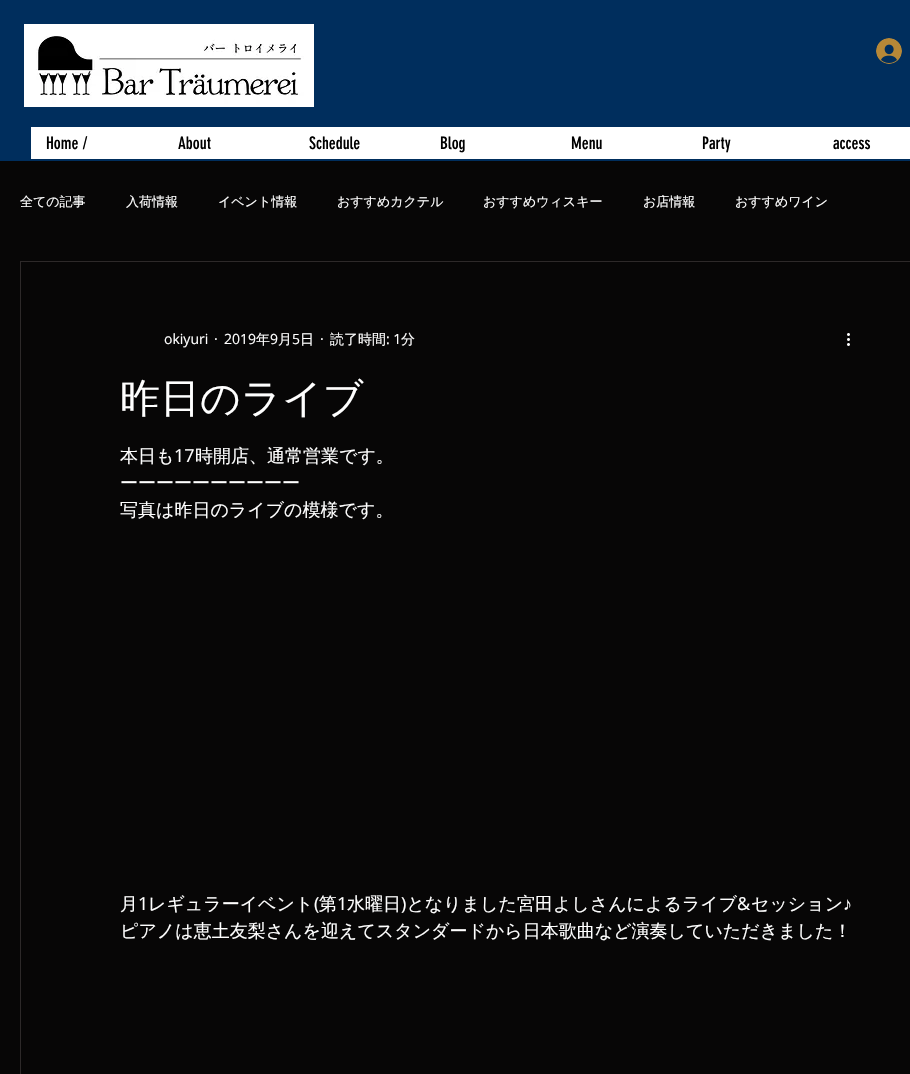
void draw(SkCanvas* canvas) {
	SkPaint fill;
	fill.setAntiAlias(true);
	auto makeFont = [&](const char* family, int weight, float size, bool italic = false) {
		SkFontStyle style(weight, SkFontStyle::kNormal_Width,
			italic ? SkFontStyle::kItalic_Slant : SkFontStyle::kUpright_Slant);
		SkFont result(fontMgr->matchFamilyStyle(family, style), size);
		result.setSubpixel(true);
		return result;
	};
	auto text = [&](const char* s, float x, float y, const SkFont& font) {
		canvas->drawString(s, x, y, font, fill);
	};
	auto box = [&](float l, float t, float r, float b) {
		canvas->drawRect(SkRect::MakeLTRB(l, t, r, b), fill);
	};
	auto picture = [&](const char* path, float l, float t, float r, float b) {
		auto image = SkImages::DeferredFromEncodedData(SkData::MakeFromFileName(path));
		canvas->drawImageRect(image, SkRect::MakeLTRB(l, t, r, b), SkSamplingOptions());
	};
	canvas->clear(0xFF002E5D);
	picture("image0.png", 24, 24, 314, 107);
	picture("image1.png", 876, 38, 902, 64);
	fill.setColor(0xFFFFFFFF);
	box(31, 127, 910, 159);
	fill.setColor(0xFF070606);
	box(0, 161, 910, 1074);
	fill.setStyle(SkPaint::kStroke_Style);
	fill.setStrokeWidth(1);
	fill.setColor(0xFF2D2929);
	canvas->drawRect(SkRect::MakeLTRB(20.5f, 261.5f, 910.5f, 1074.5f), fill);
	picture("image2.png", 847, 333, 850, 346);
	auto font1 = makeFont("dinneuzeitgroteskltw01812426", 400, 17);
	fill.setStyle(SkPaint::kFill_Style);
	fill.setColor(0xFF000000);
	text("Home /", 46, 149, font1);
	text("About", 178, 149, font1);
	text("Schedule", 309, 149, font1);
	text("Blog", 440, 149, font1);
	text("Menu", 571, 149, font1);
	text("Party", 702, 149, font1);
	text("access", 833, 149, font1);
	auto font2 = makeFont("WenQuanYi Zen Hei", 500, 13);
	fill.setColor(0xFFFFFFFF);
	text("全ての記事", 20, 206, font2);
	text("入荷情報", 126, 206, font2);
	text("イベント情報", 218, 206, font2);
	text("おすすめカクテル", 337, 206, font2);
	text("おすすめウィスキー", 483, 206, font2);
	text("お店情報", 643, 206, font2);
	text("おすすめワイン", 735, 206, font2);
	auto font3 = makeFont("Open Sans", 400, 14);
	text("okiyuri", 164, 344, font3);
	text("·", 214, 344, font3);
	text("2019", 224, 344, font3);
	auto font4 = makeFont("WenQuanYi Zen Hei", 500, 14);
	text("年", 256, 344, font4);
	text("9", 270, 344, font3);
	text("月", 278, 344, font4);
	text("5", 292, 344, font3);
	text("日", 300, 344, font4);
	text("·", 320, 344, font3);
	text("読了時間", 330, 344, font4);
	text(": 1", 386, 344, font3);
	text("分", 401, 344, font4);
	auto font5 = makeFont("WenQuanYi Zen Hei", 500, 40);
	text("昨日のライブ", 120, 412, font5);
	auto font6 = makeFont("WenQuanYi Zen Hei", 500, 18);
	text("本日も", 120, 462, font6);
	auto font7 = makeFont("Open Sans", 400, 18);
	text("17", 174, 462, font7);
	text("時開店、通常営業です。", 195, 462, font6);
	text("ーーーーーーーーーー", 120, 489, font6);
	text("写真は昨日のライブの模様です。", 120, 516, font6);
	text("月", 120, 910, font6);
	text("1", 138, 910, font7);
	text("レギュラーイベント 第", 148, 910, font6);
	text("水曜日 となりました宮田よしさんによるライブ", 347, 910, font6);
	text("&", 737, 910, font7);
	text("(", 314, 910, font7);
	text("1", 337, 910, font7);
	text(")", 401, 910, font7);
	text("セッション", 751, 910, font6);
	auto font8 = makeFont("Liberation Sans", 400, 18);
	text("♪", 843, 910, font8);
	text("ピアノは恵土友梨さんを迎えてスタンダードから日本歌曲など演奏していただきました！", 120, 937, font6);
}
